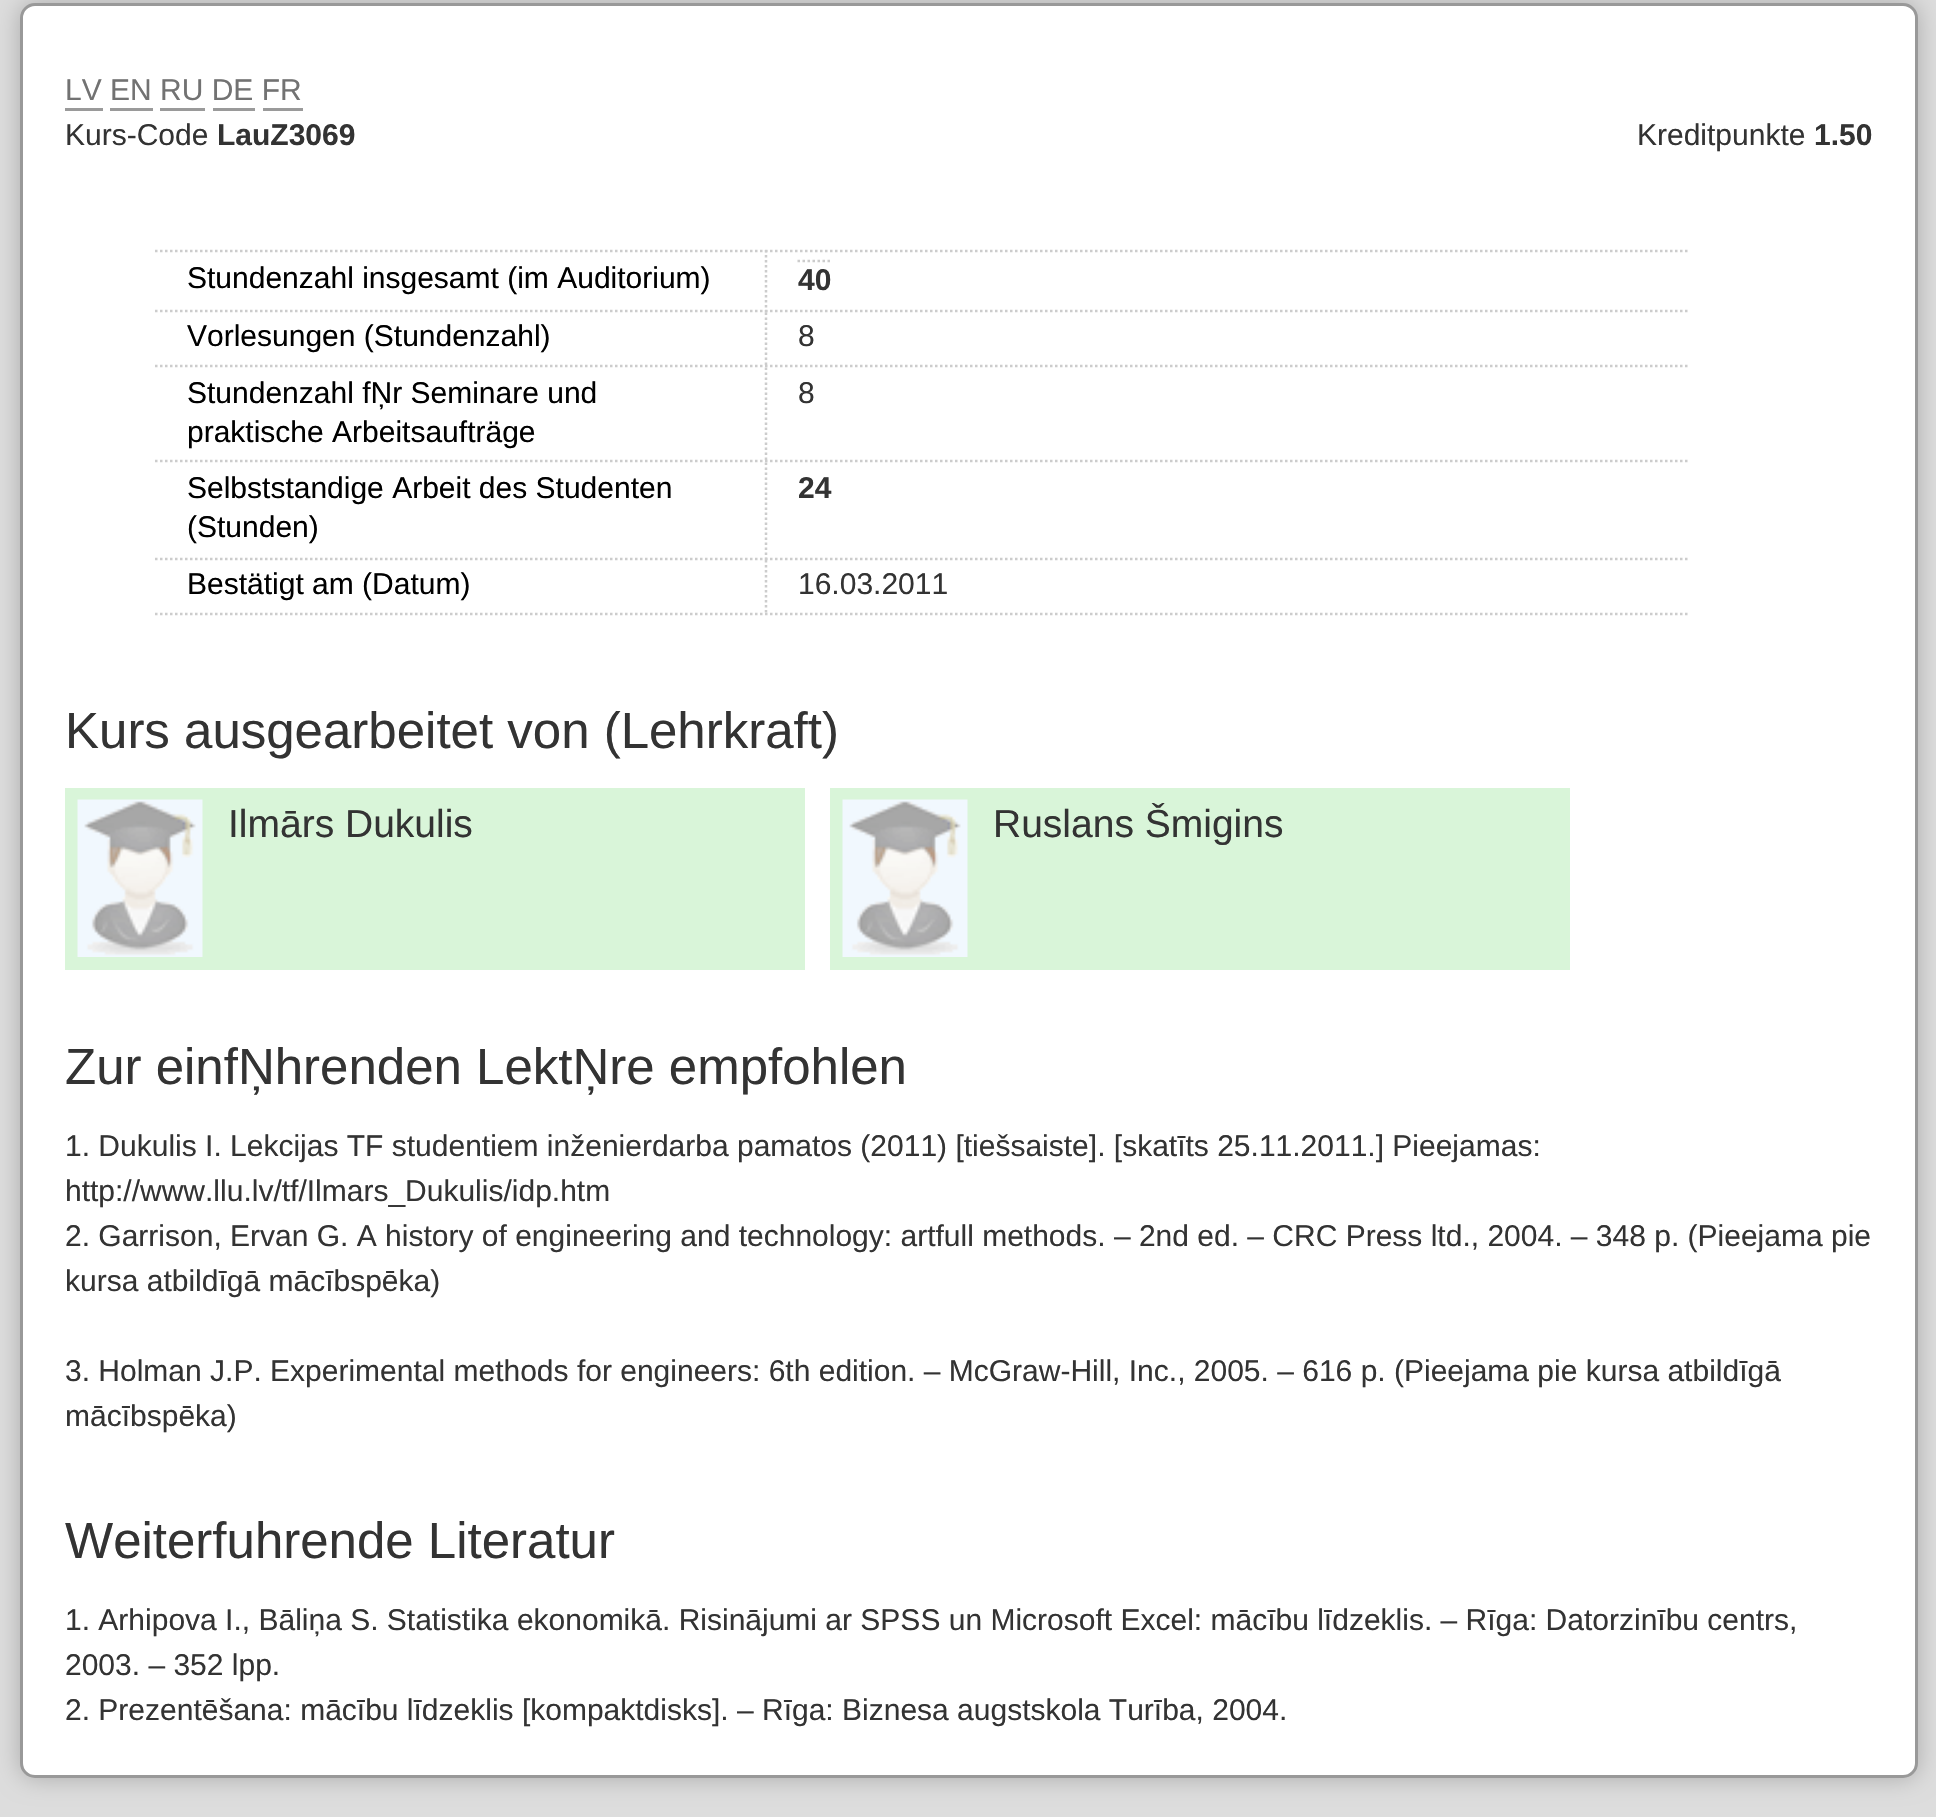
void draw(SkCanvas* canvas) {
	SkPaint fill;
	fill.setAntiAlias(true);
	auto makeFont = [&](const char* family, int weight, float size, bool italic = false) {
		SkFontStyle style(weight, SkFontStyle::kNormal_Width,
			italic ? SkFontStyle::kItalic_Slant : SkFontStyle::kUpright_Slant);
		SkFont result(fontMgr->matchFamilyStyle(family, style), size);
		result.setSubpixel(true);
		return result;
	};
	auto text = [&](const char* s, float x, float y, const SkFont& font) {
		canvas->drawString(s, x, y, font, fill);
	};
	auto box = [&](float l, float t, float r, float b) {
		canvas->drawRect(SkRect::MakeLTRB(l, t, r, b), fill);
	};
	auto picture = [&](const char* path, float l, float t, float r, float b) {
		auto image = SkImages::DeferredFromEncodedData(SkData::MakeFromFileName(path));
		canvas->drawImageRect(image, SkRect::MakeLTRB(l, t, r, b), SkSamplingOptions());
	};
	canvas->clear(0xFFDDDDDD);
	fill.setColor(0xFFAAAAAA);
	fill.setMaskFilter(SkMaskFilter::MakeBlur(kNormal_SkBlurStyle, 12.5f));
	canvas->drawRoundRect(SkRect::MakeLTRB(20, 3, 1918, 1778), 15, 15, fill);
	fill.setMaskFilter(nullptr);
	fill.setColor(0xFFFFFFFF);
	canvas->drawRoundRect(SkRect::MakeLTRB(21.5f, 4.5f, 1916.5f, 1776.5f), 13.5f, 13.5f, fill);
	fill.setStyle(SkPaint::kStroke_Style);
	fill.setStrokeWidth(3);
	fill.setColor(0xFF999999);
	canvas->drawRoundRect(SkRect::MakeLTRB(21.5f, 4.5f, 1916.5f, 1776.5f), 13.5f, 13.5f, fill);
	fill.setStyle(SkPaint::kFill_Style);
	fill.setColor(0xFF9A9A9A);
	box(65, 108, 103, 111);
	box(110, 108, 153, 111);
	box(160, 108, 205, 111);
	box(213, 108, 255, 111);
	box(263, 108, 303, 111);
	fill.setStyle(SkPaint::kStroke_Style);
	fill.setStrokeWidth(2.5f);
	fill.setColor(0xFFCCCCCC);
	fill.setPathEffect(SkDashPathEffect::Make({{2.5f, 2.5f}}, 0));
	canvas->drawPath(SkPathBuilder().moveTo(155, 251).lineTo(765, 251).detach(), fill);
	fill.setPathEffect(nullptr);
	fill.setPathEffect(SkDashPathEffect::Make({{2.5f, 2.5f}}, 0));
	canvas->drawPath(SkPathBuilder().moveTo(155, 311).lineTo(765, 311).detach(), fill);
	fill.setPathEffect(nullptr);
	fill.setPathEffect(SkDashPathEffect::Make({{2.5f, 2.5f}}, 0));
	canvas->drawPath(SkPathBuilder().moveTo(765, 251).lineTo(1687.5f, 251).detach(), fill);
	fill.setPathEffect(nullptr);
	fill.setPathEffect(SkDashPathEffect::Make({{2.5f, 2.5f}}, 0));
	canvas->drawPath(SkPathBuilder().moveTo(765, 311).lineTo(1687.5f, 311).detach(), fill);
	fill.setPathEffect(nullptr);
	fill.setPathEffect(SkDashPathEffect::Make({{2.5f, 2.5f}}, 0));
	canvas->drawPath(SkPathBuilder().moveTo(766, 250).lineTo(766, 312.5f).detach(), fill);
	fill.setPathEffect(nullptr);
	fill.setPathEffect(SkDashPathEffect::Make({{2.5f, 2.5f}}, 0));
	canvas->drawPath(SkPathBuilder().moveTo(797.5f, 261).lineTo(832.5f, 261).detach(), fill);
	fill.setPathEffect(nullptr);
	fill.setPathEffect(SkDashPathEffect::Make({{2.5f, 2.5f}}, 0));
	canvas->drawPath(SkPathBuilder().moveTo(155, 366).lineTo(765, 366).detach(), fill);
	fill.setPathEffect(nullptr);
	fill.setPathEffect(SkDashPathEffect::Make({{2.5f, 2.5f}}, 0));
	canvas->drawPath(SkPathBuilder().moveTo(765, 366).lineTo(1687.5f, 366).detach(), fill);
	fill.setPathEffect(nullptr);
	fill.setPathEffect(SkDashPathEffect::Make({{2.5f, 2.5f}}, 0));
	canvas->drawPath(SkPathBuilder().moveTo(766, 312.5f).lineTo(766, 367.5f).detach(), fill);
	fill.setPathEffect(nullptr);
	fill.setPathEffect(SkDashPathEffect::Make({{2.5f, 2.5f}}, 0));
	canvas->drawPath(SkPathBuilder().moveTo(155, 461).lineTo(765, 461).detach(), fill);
	fill.setPathEffect(nullptr);
	fill.setPathEffect(SkDashPathEffect::Make({{2.5f, 2.5f}}, 0));
	canvas->drawPath(SkPathBuilder().moveTo(765, 461).lineTo(1687.5f, 461).detach(), fill);
	fill.setPathEffect(nullptr);
	fill.setPathEffect(SkDashPathEffect::Make({{2.5f, 2.5f}}, 0));
	canvas->drawPath(SkPathBuilder().moveTo(766, 367.5f).lineTo(766, 462.5f).detach(), fill);
	fill.setPathEffect(nullptr);
	fill.setPathEffect(SkDashPathEffect::Make({{2.5f, 2.5f}}, 0));
	canvas->drawPath(SkPathBuilder().moveTo(155, 559).lineTo(765, 559).detach(), fill);
	fill.setPathEffect(nullptr);
	fill.setPathEffect(SkDashPathEffect::Make({{2.5f, 2.5f}}, 0));
	canvas->drawPath(SkPathBuilder().moveTo(765, 559).lineTo(1687.5f, 559).detach(), fill);
	fill.setPathEffect(nullptr);
	fill.setPathEffect(SkDashPathEffect::Make({{2.5f, 2.5f}}, 0));
	canvas->drawPath(SkPathBuilder().moveTo(766, 462.5f).lineTo(766, 560).detach(), fill);
	fill.setPathEffect(nullptr);
	fill.setPathEffect(SkDashPathEffect::Make({{2.5f, 2.5f}}, 0));
	canvas->drawPath(SkPathBuilder().moveTo(155, 614).lineTo(765, 614).detach(), fill);
	fill.setPathEffect(nullptr);
	fill.setPathEffect(SkDashPathEffect::Make({{2.5f, 2.5f}}, 0));
	canvas->drawPath(SkPathBuilder().moveTo(765, 614).lineTo(1687.5f, 614).detach(), fill);
	fill.setPathEffect(nullptr);
	fill.setPathEffect(SkDashPathEffect::Make({{2.5f, 2.5f}}, 0));
	canvas->drawPath(SkPathBuilder().moveTo(766, 560).lineTo(766, 615).detach(), fill);
	fill.setPathEffect(nullptr);
	fill.setStyle(SkPaint::kFill_Style);
	fill.setColor(0xFFD9F5D9);
	box(65, 788, 805, 970);
	picture("image0.png", 77, 799, 203, 957);
	box(830, 788, 1570, 970);
	picture("image1.png", 842, 799, 968, 957);
	auto font1 = makeFont("Liberation Sans", 400, 30);
	fill.setColor(0xFF727272);
	text("LV EN RU DE FR", 65, 100, font1);
	fill.setColor(0xFF333333);
	text("Kurs-Code", 65, 145, font1);
	auto font2 = makeFont("Liberation Sans", 700, 30);
	text("LauZ3069", 217, 145, font2);
	text("Kreditpunkte", 1637, 145, font1);
	text("1.50", 1814, 145, font2);
	fill.setColor(0xFF000000);
	text("Stundenzahl insgesamt (im Auditorium)", 187, 288, font1);
	fill.setColor(0xFF333333);
	text("40", 798, 290, font2);
	fill.setColor(0xFF000000);
	text("Vorlesungen (Stundenzahl)", 187, 346, font1);
	fill.setColor(0xFF333333);
	text("8", 798, 346, font1);
	fill.setColor(0xFF000000);
	text("Stundenzahl fŅr Seminare und", 187, 403, font1);
	text("praktische Arbeitsaufträge", 187, 442, font1);
	fill.setColor(0xFF333333);
	text("8", 798, 403, font1);
	fill.setColor(0xFF000000);
	text("Selbststandige Arbeit des Studenten", 187, 498, font1);
	text("(Stunden)", 187, 537, font1);
	fill.setColor(0xFF333333);
	text("24", 798, 498, font2);
	fill.setColor(0xFF000000);
	text("Bestätigt am (Datum)", 187, 594, font1);
	fill.setColor(0xFF333333);
	text("16.03.2011", 798, 594, font1);
	auto font3 = makeFont("Liberation Sans", 400, 51);
	text("Kurs ausgearbeitet von (Lehrkraft)", 65, 748, font3);
	auto font4 = makeFont("Liberation Sans", 400, 39);
	text("Ilmārs Dukulis", 228, 837, font4);
	text("Ruslans Šmigins", 993, 837, font4);
	text("Zur einfŅhrenden LektŅre empfohlen", 65, 1084, font3);
	text("1. Dukulis I. Lekcijas TF studentiem inženierdarba pamatos (2011) [tiešsaiste]. [skatīts 25.11.2011.] Pieejamas:", 65, 1156, font1);
	text("http://www.llu.lv/tf/Ilmars_Dukulis/idp.htm", 65, 1201, font1);
	text("2. Garrison, Ervan G. A history of engineering and technology: artfull methods. – 2nd ed. – CRC Press ltd., 2004. – 348 p. (Pieejama pie", 65, 1246, font1);
	text("kursa atbildīgā mācībspēka)", 65, 1291, font1);
	text("3. Holman J.P. Experimental methods for engineers: 6th edition. – McGraw-Hill, Inc., 2005. – 616 p. (Pieejama pie kursa atbildīgā", 65, 1381, font1);
	text("mācībspēka)", 65, 1426, font1);
	text("Weiterfuhrende Literatur", 65, 1558, font3);
	text("1. Arhipova I., Bāliņa S. Statistika ekonomikā. Risinājumi ar SPSS un Microsoft Excel: mācību līdzeklis. – Rīga: Datorzinību centrs,", 65, 1630, font1);
	text("2003. – 352 lpp.", 65, 1675, font1);
	text("2. Prezentēšana: mācību līdzeklis [kompaktdisks]. – Rīga: Biznesa augstskola Turība, 2004.", 65, 1720, font1);
}
